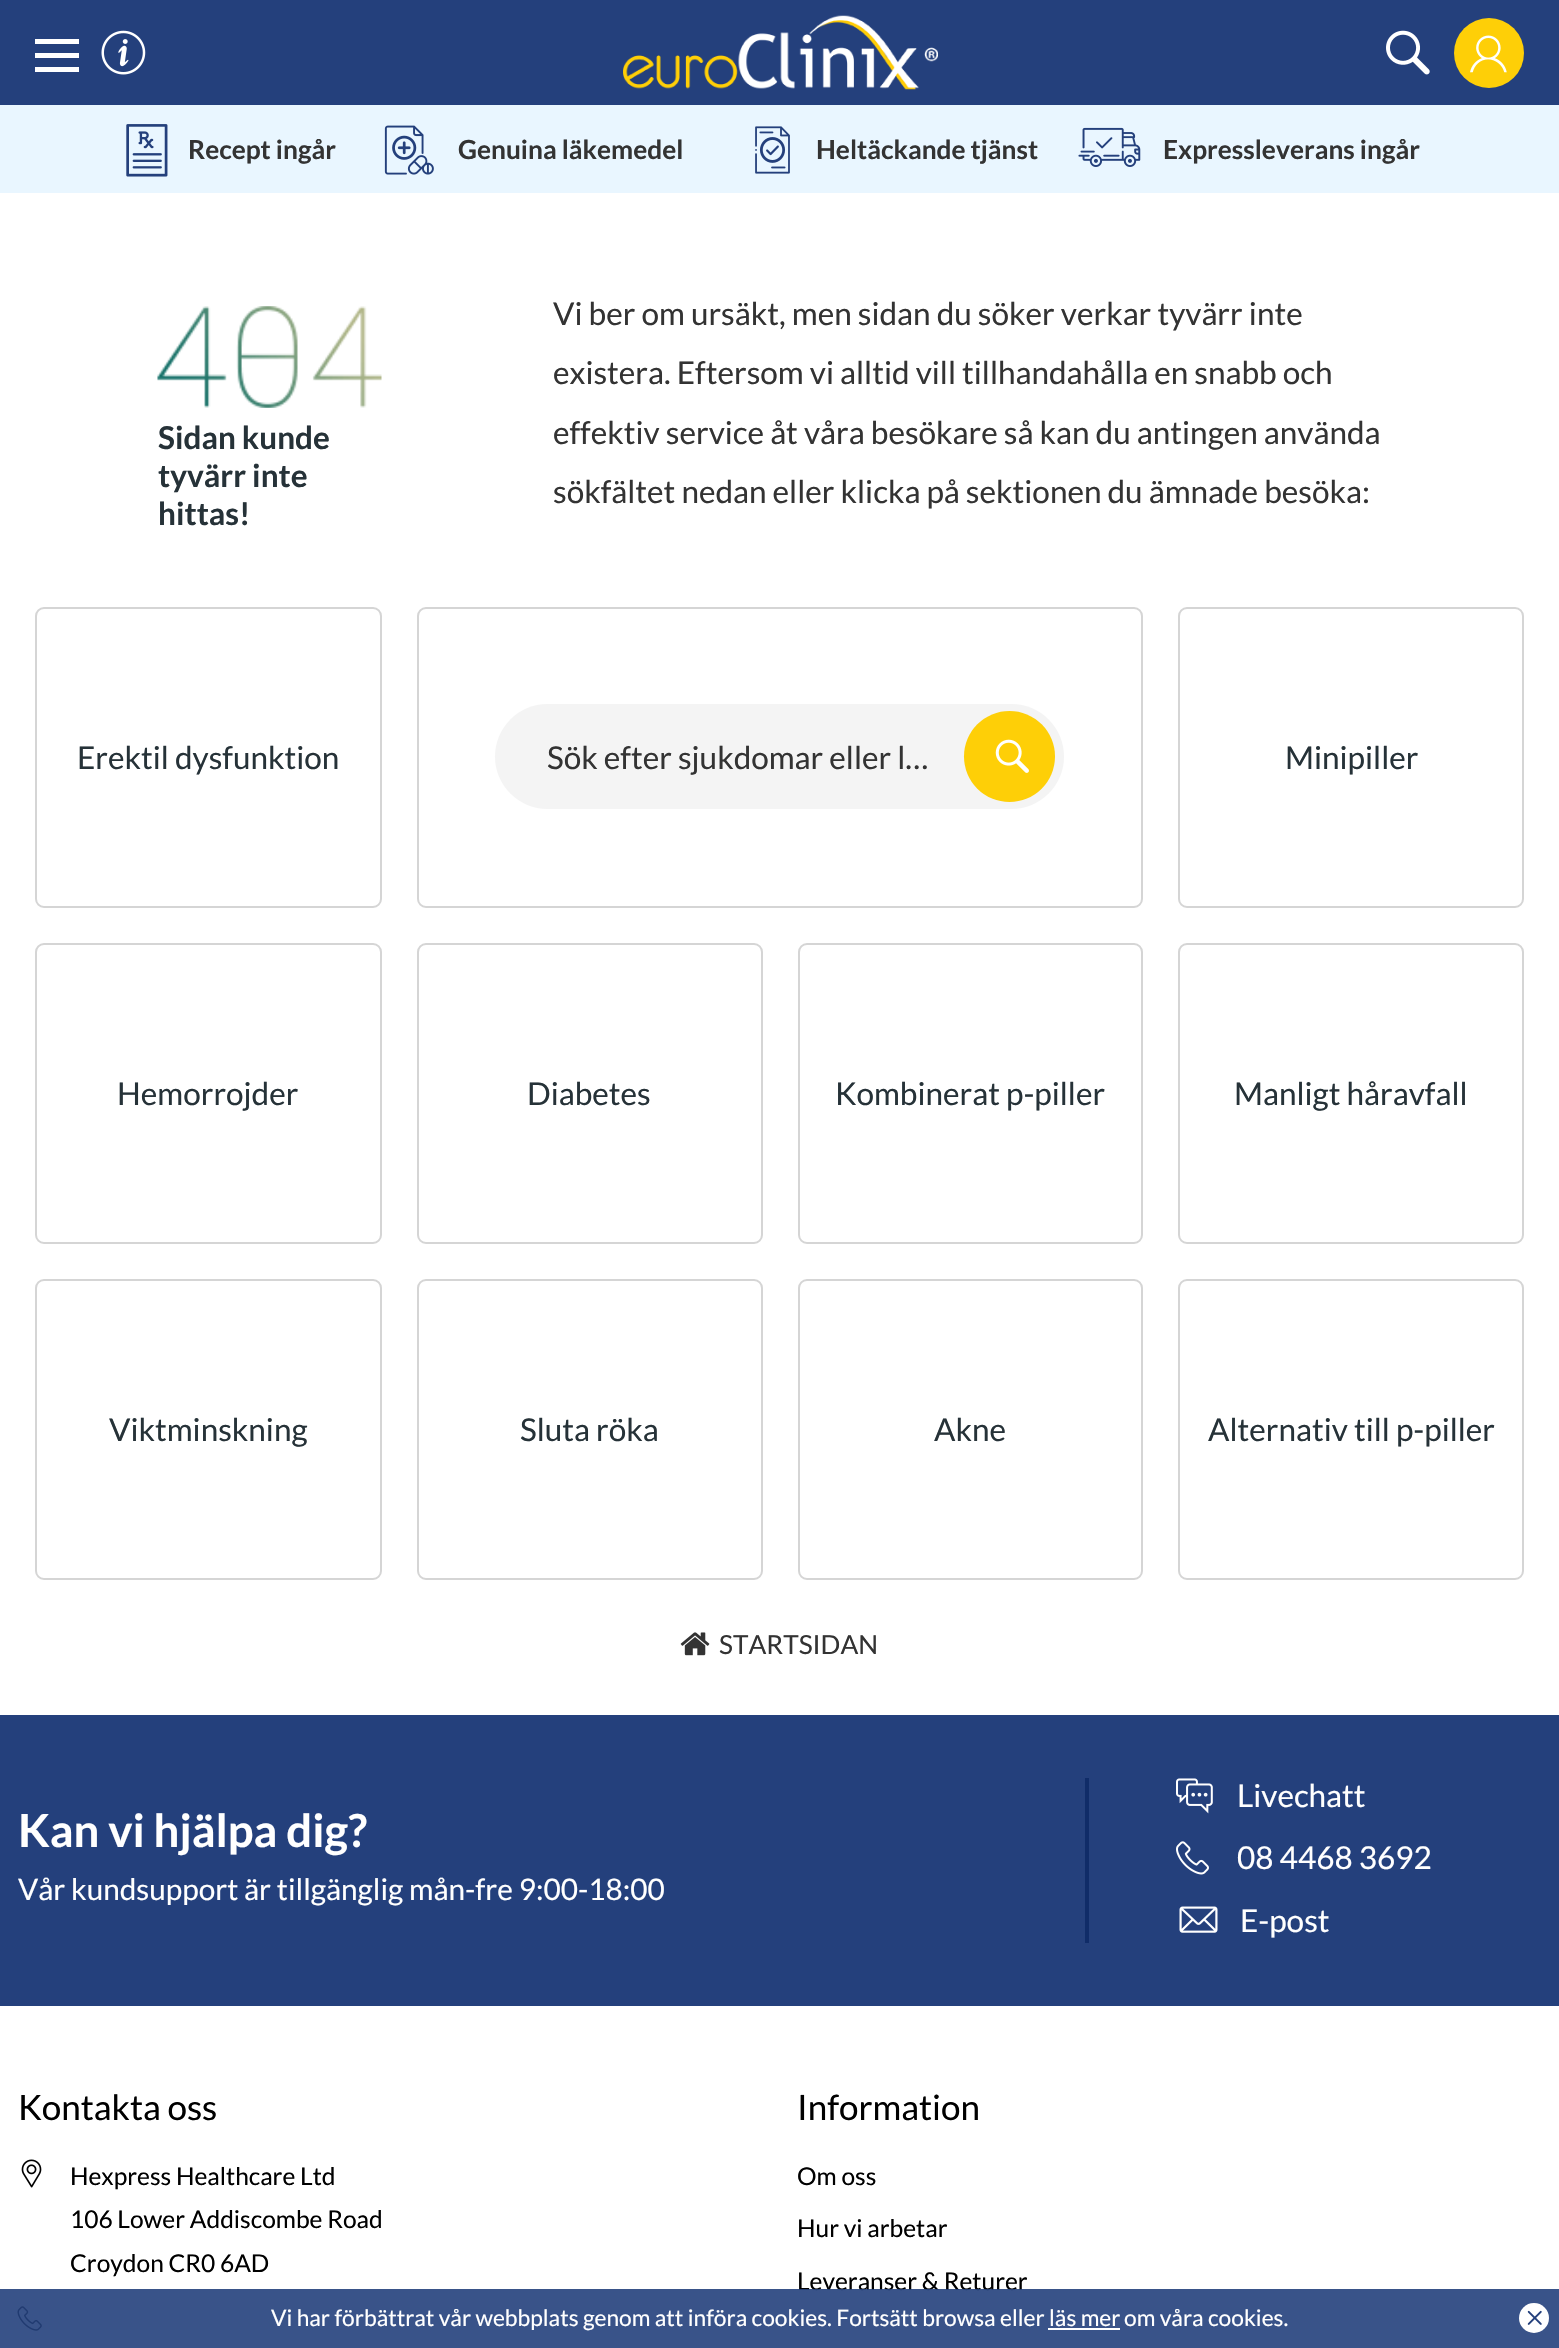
void draw(SkCanvas* canvas) {
	SkPaint fill;
	fill.setAntiAlias(true);
	auto makeFont = [&](const char* family, int weight, float size, bool italic = false) {
		SkFontStyle style(weight, SkFontStyle::kNormal_Width,
			italic ? SkFontStyle::kItalic_Slant : SkFontStyle::kUpright_Slant);
		SkFont result(fontMgr->matchFamilyStyle(family, style), size);
		result.setSubpixel(true);
		return result;
	};
	auto text = [&](const char* s, float x, float y, const SkFont& font) {
		canvas->drawString(s, x, y, font, fill);
	};
	auto box = [&](float l, float t, float r, float b) {
		canvas->drawRect(SkRect::MakeLTRB(l, t, r, b), fill);
	};
	auto roundBox = [&](float l, float t, float r, float b, float radius) {
		canvas->drawRoundRect(SkRect::MakeLTRB(l, t, r, b), radius, radius, fill);
	};
	auto picture = [&](const char* path, float l, float t, float r, float b) {
		auto image = SkImages::DeferredFromEncodedData(SkData::MakeFromFileName(path));
		canvas->drawImageRect(image, SkRect::MakeLTRB(l, t, r, b), SkSamplingOptions());
	};
	canvas->clear(0xFFFFFFFF);
	fill.setColor(0xFF24407C);
	box(0, 0, 1559, 105);
	fill.setColor(0xFFFFFFFF);
	box(35, 39, 79, 44);
	box(35, 53, 79, 58);
	box(35, 67, 79, 72);
	picture("image0.png", 101, 30, 146, 75);
	picture("image1.png", 623, 15, 938, 90);
	picture("image2.png", 1386, 30, 1430, 75);
	fill.setColor(0xFFFECF07);
	canvas->drawCircle(1489, 53, 35, fill);
	picture("image3.png", 1470, 35, 1507, 73);
	fill.setColor(0xFFE9F6FF);
	box(0, 105, 1559, 193);
	picture("image4.png", 126, 124, 168, 177);
	picture("image5.png", 384, 125, 434, 175);
	picture("image6.png", 755, 126, 790, 174);
	picture("image7.png", 1078, 127, 1141, 167);
	picture("image8.png", 157, 306, 382, 408);
	fill.setStyle(SkPaint::kStroke_Style);
	fill.setStrokeWidth(2);
	fill.setColor(0xFFD5D5D5);
	canvas->drawRoundRect(SkRect::MakeLTRB(36, 608, 381, 907), 8, 8, fill);
	canvas->drawRoundRect(SkRect::MakeLTRB(418, 608, 1142, 907), 8, 8, fill);
	fill.setStyle(SkPaint::kFill_Style);
	fill.setColor(0xFFF4F4F4);
	roundBox(495, 704, 1064, 809, 52.5f);
	fill.setColor(0xFFFECF07);
	canvas->drawCircle(1009.5f, 756.5f, 45.5f, fill);
	picture("image9.png", 995, 739, 1029, 773);
	fill.setStyle(SkPaint::kStroke_Style);
	fill.setColor(0xFFD5D5D5);
	canvas->drawRoundRect(SkRect::MakeLTRB(1179, 608, 1523, 907), 8, 8, fill);
	canvas->drawRoundRect(SkRect::MakeLTRB(36, 944, 381, 1243), 8, 8, fill);
	canvas->drawRoundRect(SkRect::MakeLTRB(418, 944, 762, 1243), 8, 8, fill);
	canvas->drawRoundRect(SkRect::MakeLTRB(799, 944, 1142, 1243), 8, 8, fill);
	canvas->drawRoundRect(SkRect::MakeLTRB(1179, 944, 1523, 1243), 8, 8, fill);
	canvas->drawRoundRect(SkRect::MakeLTRB(36, 1280, 381, 1579), 8, 8, fill);
	canvas->drawRoundRect(SkRect::MakeLTRB(418, 1280, 762, 1579), 8, 8, fill);
	canvas->drawRoundRect(SkRect::MakeLTRB(799, 1280, 1142, 1579), 8, 8, fill);
	canvas->drawRoundRect(SkRect::MakeLTRB(1179, 1280, 1523, 1579), 8, 8, fill);
	picture("image10.png", 680, 1632, 710, 1656);
	fill.setStyle(SkPaint::kFill_Style);
	fill.setColor(0xFF24407C);
	box(0, 1715, 1559, 2006);
	fill.setColor(0xFF102C68);
	box(1085, 1778, 1089, 1943);
	picture("image11.png", 1176, 1778, 1213, 1814);
	picture("image12.png", 1176, 1841, 1209, 1875);
	picture("image13.png", 1179, 1906, 1218, 1933);
	picture("image14.png", 21, 2159, 42, 2188);
	picture("image15.png", 17, 2306, 42, 2331);
	auto font1 = makeFont("Lato", 700, 26.25f);
	fill.setColor(0xFF333333);
	text("Recept ingår", 188, 159, font1);
	text("Genuina läkemedel", 458, 159, font1);
	text("Heltäckande tjänst", 816, 159, font1);
	text("Expressleverans ingår", 1163, 159, font1);
	auto font2 = makeFont("Lato", 700, 31.5f);
	fill.setColor(0xFF263238);
	text("Sidan kunde", 158, 449, font2);
	text("tyvärr inte", 158, 487, font2);
	text("hittas!", 158, 525, font2);
	auto font3 = makeFont("Lato", 400, 31.5f);
	fill.setColor(0xFF333333);
	text("Vi ber om ursäkt, men sidan du söker verkar tyvärr inte", 553, 325, font3);
	text("existera. Eftersom vi alltid vill tillhandahålla en snabb och", 553, 384, font3);
	text("effektiv service åt våra besökare så kan du antingen använda", 553, 444, font3);
	text("sökfältet nedan eller klicka på sektionen du ämnade besöka:", 553, 503, font3);
	fill.setColor(0xFF263238);
	text("Erektil dysfunktion", 77, 769, font3);
	fill.setColor(0xFF333333);
	text("Sök efter sjukdomar eller l…", 547, 769, font3);
	fill.setColor(0xFF263238);
	text("Minipiller", 1285, 769, font3);
	text("Hemorrojder", 117, 1105, font3);
	text("Diabetes", 527, 1105, font3);
	text("Kombinerat p-piller", 835, 1105, font3);
	text("Manligt håravfall", 1234, 1105, font3);
	text("Viktminskning", 109, 1441, font3);
	text("Sluta röka", 520, 1441, font3);
	text("Akne", 934, 1441, font3);
	text("Alternativ till p-piller", 1208, 1441, font3);
	auto font4 = makeFont("Lato", 400, 26.25f);
	fill.setColor(0xFF333333);
	text("STARTSIDAN", 719, 1654, font4);
	auto font5 = makeFont("Lato", 700, 45.5f);
	fill.setColor(0xFFFFFFFF);
	text("Kan vi hjälpa dig?", 18, 1847, font5);
	auto font6 = makeFont("Lato", 400, 29.75f);
	text("Vår kundsupport är tillgänglig mån-fre 9:00-18:00", 18, 1900, font6);
	text("Livechatt", 1237, 1807, font3);
	text("08 4468 3692", 1237, 1869, font3);
	text("E-post", 1240, 1932, font3);
	auto font7 = makeFont("Lato", 400, 35);
	fill.setColor(0xFF000000);
	text("Kontakta oss", 18, 2120, font7);
	auto font8 = makeFont("Lato", 400, 24.5f);
	text("Hexpress Healthcare Ltd", 70, 2185, font8);
	text("106 Lower Addiscombe Road", 70, 2228, font8);
	text("Croydon CR0 6AD", 70, 2272, font8);
	text("Information", 797, 2120, font7);
	text("Om oss", 797, 2185, font8);
	text("Hur vi arbetar", 797, 2237, font8);
	text("Leveranser & Returer", 797, 2290, font8);
	fill.setColor(0xE623407C);
	box(0, 2289, 1559, 2348);
	auto font9 = makeFont("Lato", 400, 22.75f);
	fill.setColor(0xFFFFFFFF);
	text("Vi har förbättrat vår webbplats genom att införa cookies. Fortsätt browsa eller läs mer", 271, 2326, font9);
	text("om våra cookies.", 1124, 2326, font9);
	canvas->drawCircle(1534, 2318, 15, fill);
	picture("image16.png", 1527, 2310, 1542, 2325);
	box(1048, 2328, 1120, 2330);
}
